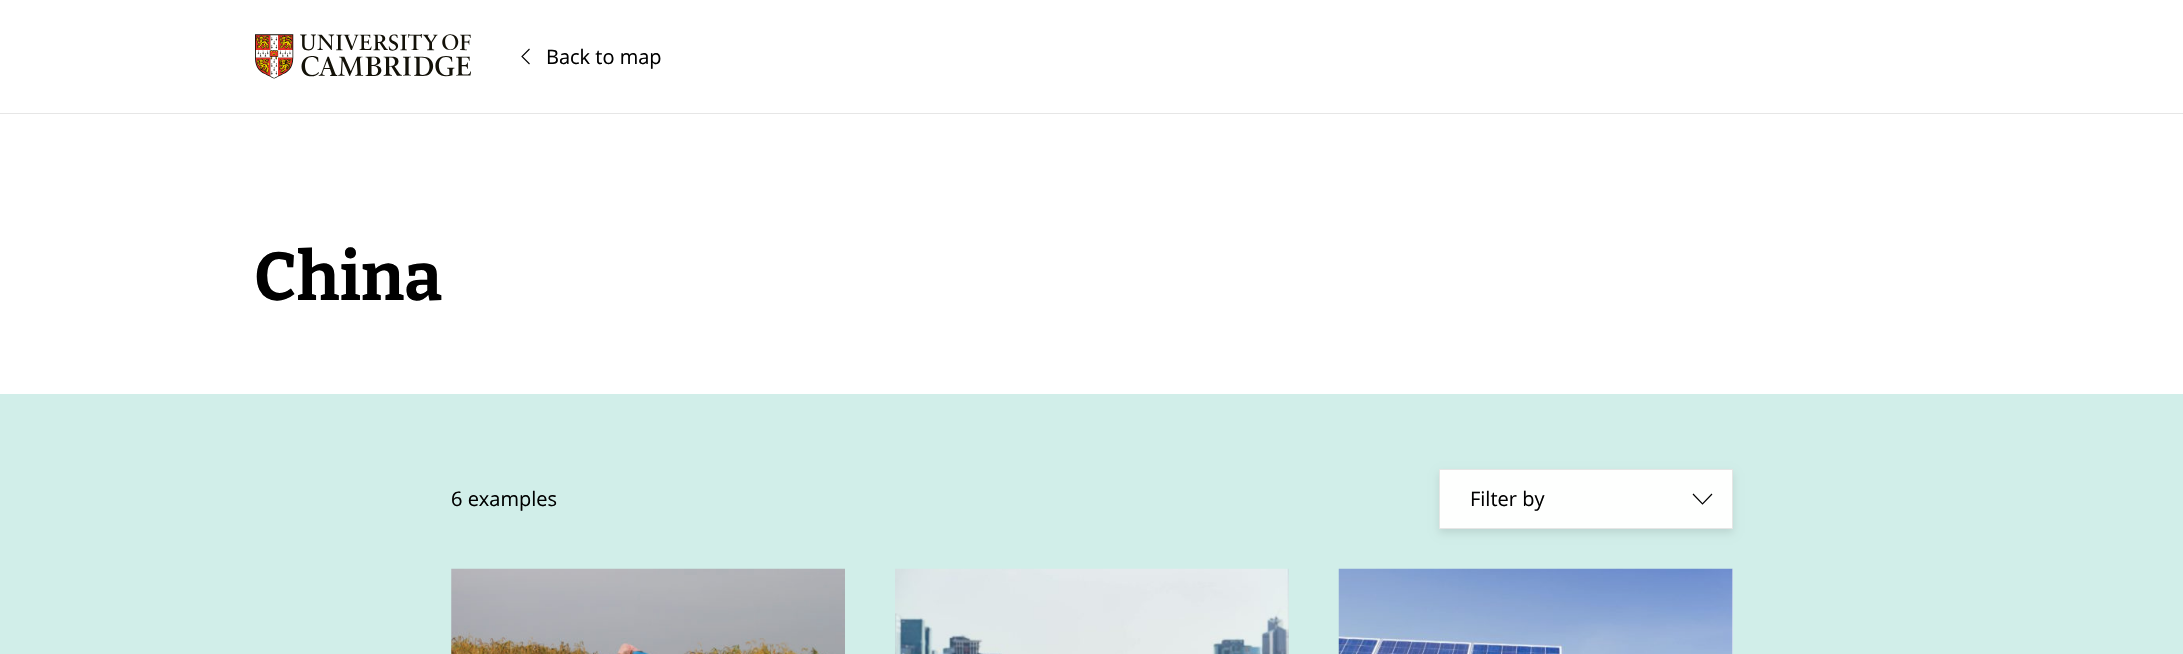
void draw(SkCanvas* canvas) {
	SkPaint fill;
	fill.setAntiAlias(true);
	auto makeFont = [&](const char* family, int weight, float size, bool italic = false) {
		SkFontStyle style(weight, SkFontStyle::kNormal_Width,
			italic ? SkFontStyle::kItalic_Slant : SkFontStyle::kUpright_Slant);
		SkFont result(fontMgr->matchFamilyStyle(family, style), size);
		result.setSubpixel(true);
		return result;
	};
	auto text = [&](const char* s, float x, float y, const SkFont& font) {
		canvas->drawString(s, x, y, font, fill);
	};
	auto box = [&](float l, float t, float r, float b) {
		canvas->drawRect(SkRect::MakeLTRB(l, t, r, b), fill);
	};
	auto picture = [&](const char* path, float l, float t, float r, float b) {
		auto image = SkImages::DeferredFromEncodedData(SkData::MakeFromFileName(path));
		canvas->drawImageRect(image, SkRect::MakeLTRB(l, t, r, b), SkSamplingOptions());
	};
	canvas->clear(0xFFFFFFFF);
	fill.setColor(0xFFE6E6E6);
	box(0, 113, 2183, 114);
	picture("image0.png", 255, 34, 471, 79);
	fill.setStyle(SkPaint::kStroke_Style);
	fill.setStrokeWidth(1.1f);
	fill.setColor(0xFF000000);
	canvas->drawPath(SkPathBuilder().moveTo(529.5f, 64).lineTo(522, 56.5f).lineTo(529.5f, 49).detach(), fill);
	fill.setStyle(SkPaint::kFill_Style);
	fill.setColor(0xFFD1EEE9);
	box(0, 394, 2183, 654);
	fill.setColor(0x1A000000);
	fill.setMaskFilter(SkMaskFilter::MakeBlur(kNormal_SkBlurStyle, 4));
	canvas->drawRect(SkRect::MakeLTRB(1439, 473, 1733, 533), fill);
	fill.setMaskFilter(nullptr);
	fill.setColor(0xFFFEFFFE);
	canvas->drawRect(SkRect::MakeLTRB(1439.5f, 469.5f, 1732.5f, 528.5f), fill);
	fill.setStyle(SkPaint::kStroke_Style);
	fill.setStrokeWidth(1);
	fill.setColor(0xFFE5E6E5);
	canvas->drawRect(SkRect::MakeLTRB(1439.5f, 469.5f, 1732.5f, 528.5f), fill);
	fill.setStrokeWidth(1.2f);
	fill.setColor(0xFF000000);
	canvas->drawPath(SkPathBuilder().moveTo(1693, 494).lineTo(1702.5f, 504).lineTo(1712, 494).detach(), fill);
	picture("image1.png", 451, 568, 845, 654);
	picture("image2.png", 895, 568, 1289, 654);
	fill.setStyle(SkPaint::kFill_Style);
	fill.setColor(0xFFFEFFFE);
	box(1732, 569, 1733, 654);
	picture("image3.png", 1338, 568, 1733, 654);
	auto font1 = makeFont("Open Sans", 400, 20);
	fill.setColor(0xFF000000);
	text("Back to map", 546, 64, font1);
	auto font2 = makeFont("Bitter", 100, 67.5f);
	text("China", 254, 300, font2);
	text("6 examples", 451, 506, font1);
	text("Filter by", 1470, 506, font1);
}
